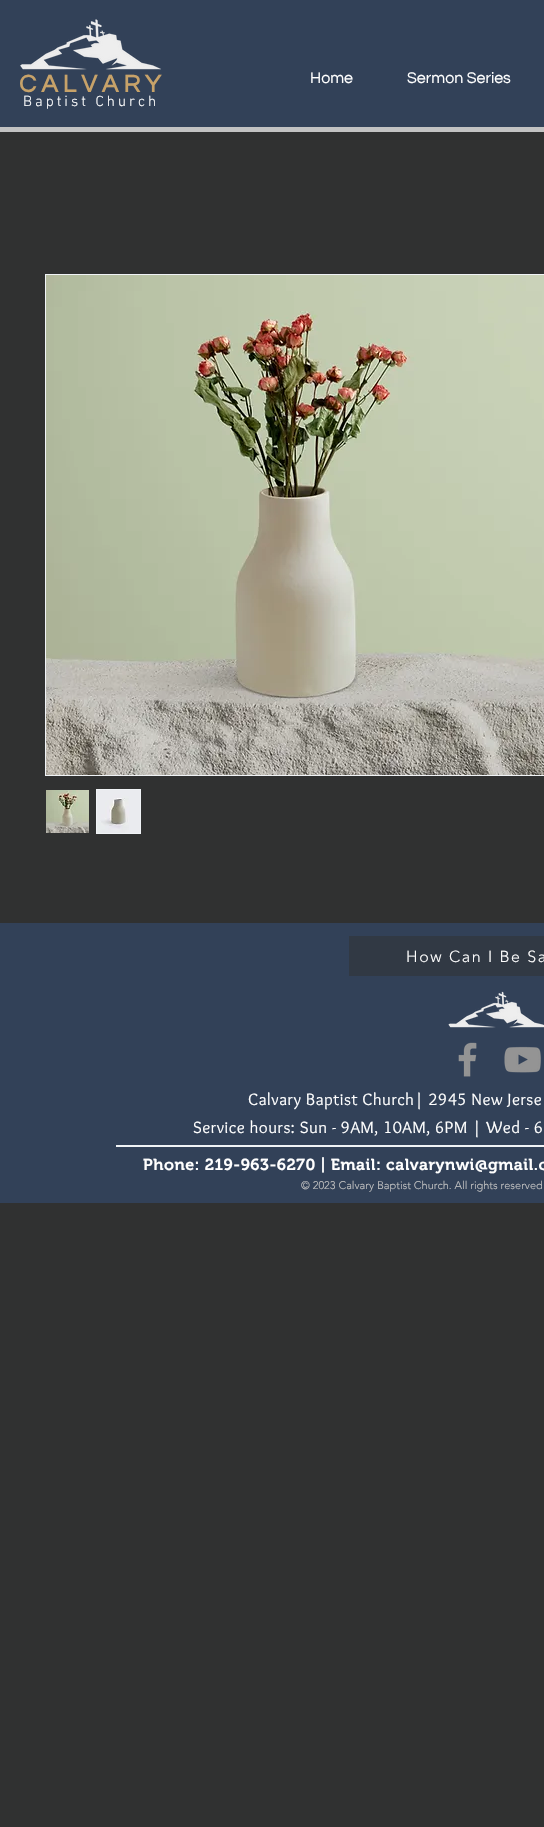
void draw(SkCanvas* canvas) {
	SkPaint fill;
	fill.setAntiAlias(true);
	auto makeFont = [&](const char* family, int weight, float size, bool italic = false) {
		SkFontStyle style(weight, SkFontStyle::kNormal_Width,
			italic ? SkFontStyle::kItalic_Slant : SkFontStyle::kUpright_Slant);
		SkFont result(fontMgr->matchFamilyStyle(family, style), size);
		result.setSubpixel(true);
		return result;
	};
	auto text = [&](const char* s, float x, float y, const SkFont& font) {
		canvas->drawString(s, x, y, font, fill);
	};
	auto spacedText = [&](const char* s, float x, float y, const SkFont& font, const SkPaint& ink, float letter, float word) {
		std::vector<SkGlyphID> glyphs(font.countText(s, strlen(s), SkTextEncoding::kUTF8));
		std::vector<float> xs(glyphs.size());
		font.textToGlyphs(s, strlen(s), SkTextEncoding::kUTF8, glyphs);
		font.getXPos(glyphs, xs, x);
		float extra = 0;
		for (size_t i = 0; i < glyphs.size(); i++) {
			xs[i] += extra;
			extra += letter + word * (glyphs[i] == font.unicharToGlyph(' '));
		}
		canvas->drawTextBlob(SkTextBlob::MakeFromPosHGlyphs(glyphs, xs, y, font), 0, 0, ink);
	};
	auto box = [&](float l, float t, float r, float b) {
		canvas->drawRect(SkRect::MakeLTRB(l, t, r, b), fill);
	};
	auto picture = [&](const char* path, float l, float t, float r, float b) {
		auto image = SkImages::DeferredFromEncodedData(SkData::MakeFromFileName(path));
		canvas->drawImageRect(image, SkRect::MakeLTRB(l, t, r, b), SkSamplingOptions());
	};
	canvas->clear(0xFF303131);
	fill.setColor(0xFF324158);
	box(0, 0, 544, 127);
	fill.setColor(0xFFC2C2C2);
	box(0, 127, 544, 132);
	picture("image0.png", 20, 19, 161, 70);
	fill.setStyle(SkPaint::kStroke_Style);
	fill.setStrokeWidth(1);
	fill.setColor(0xFFF0F3F6);
	canvas->drawRect(SkRect::MakeLTRB(45.5f, 274.5f, 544.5f, 775.5f), fill);
	picture("image1.png", 46, 275, 544, 775);
	picture("image2.png", 46, 790, 89, 833);
	fill.setStyle(SkPaint::kFill_Style);
	box(96, 789, 141, 834);
	picture("image3.png", 97, 790, 140, 833);
	fill.setColor(0xFF324158);
	box(0, 923, 544, 1203);
	fill.setColor(0xFF313944);
	box(349, 936, 544, 976);
	picture("image4.png", 448, 991, 544, 1028);
	picture("image5.png", 458, 1042, 477, 1077);
	picture("image6.png", 504, 1046, 541, 1073);
	fill.setColor(0xFFF0F3F6);
	box(116, 1145, 544, 1147);
	auto font1 = makeFont("Questrial", 700, 25);
	fill.setColor(0xFFC7A269);
	spacedText("CALVARY", 19, 92, font1, fill, 5, 0);
	auto font2 = makeFont("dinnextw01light", 300, 15);
	fill.setColor(0xFFFFFFFF);
	spacedText("Baptist Church", 23, 106, font2, fill, 3, 0);
	auto font3 = makeFont("Questrial", 400, 16);
	text("Home", 310, 83, font3);
	text("Sermon Series", 407, 83, font3);
	auto font4 = makeFont("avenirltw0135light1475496", 300, 16);
	spacedText("How Can I Be Sa", 406, 962, font4, fill, 1.6f, 0);
	auto font5 = makeFont("Overlock", 400, 17);
	spacedText("Calvary Baptist Church| 2945 New Jerse", 248, 1105, font5, fill, 0.5f, 0);
	spacedText("Service hours: Sun - 9AM, 10AM, 6PM | Wed - 6", 193, 1133, font5, fill, 0.5f, 0);
	auto font6 = makeFont("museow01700", 600, 16);
	spacedText("Phone: 219-963-6270 | Email: calvarynwi@gmail.c", 143, 1170, font6, fill, 0.5f, 0);
	auto font7 = makeFont("avenirltw0135light1475496", 300, 11);
	fill.setColor(0xFFC2C2C2);
	text("© 2023 Calvary Baptist Church. All rights reserved", 301, 1189, font7);
}
